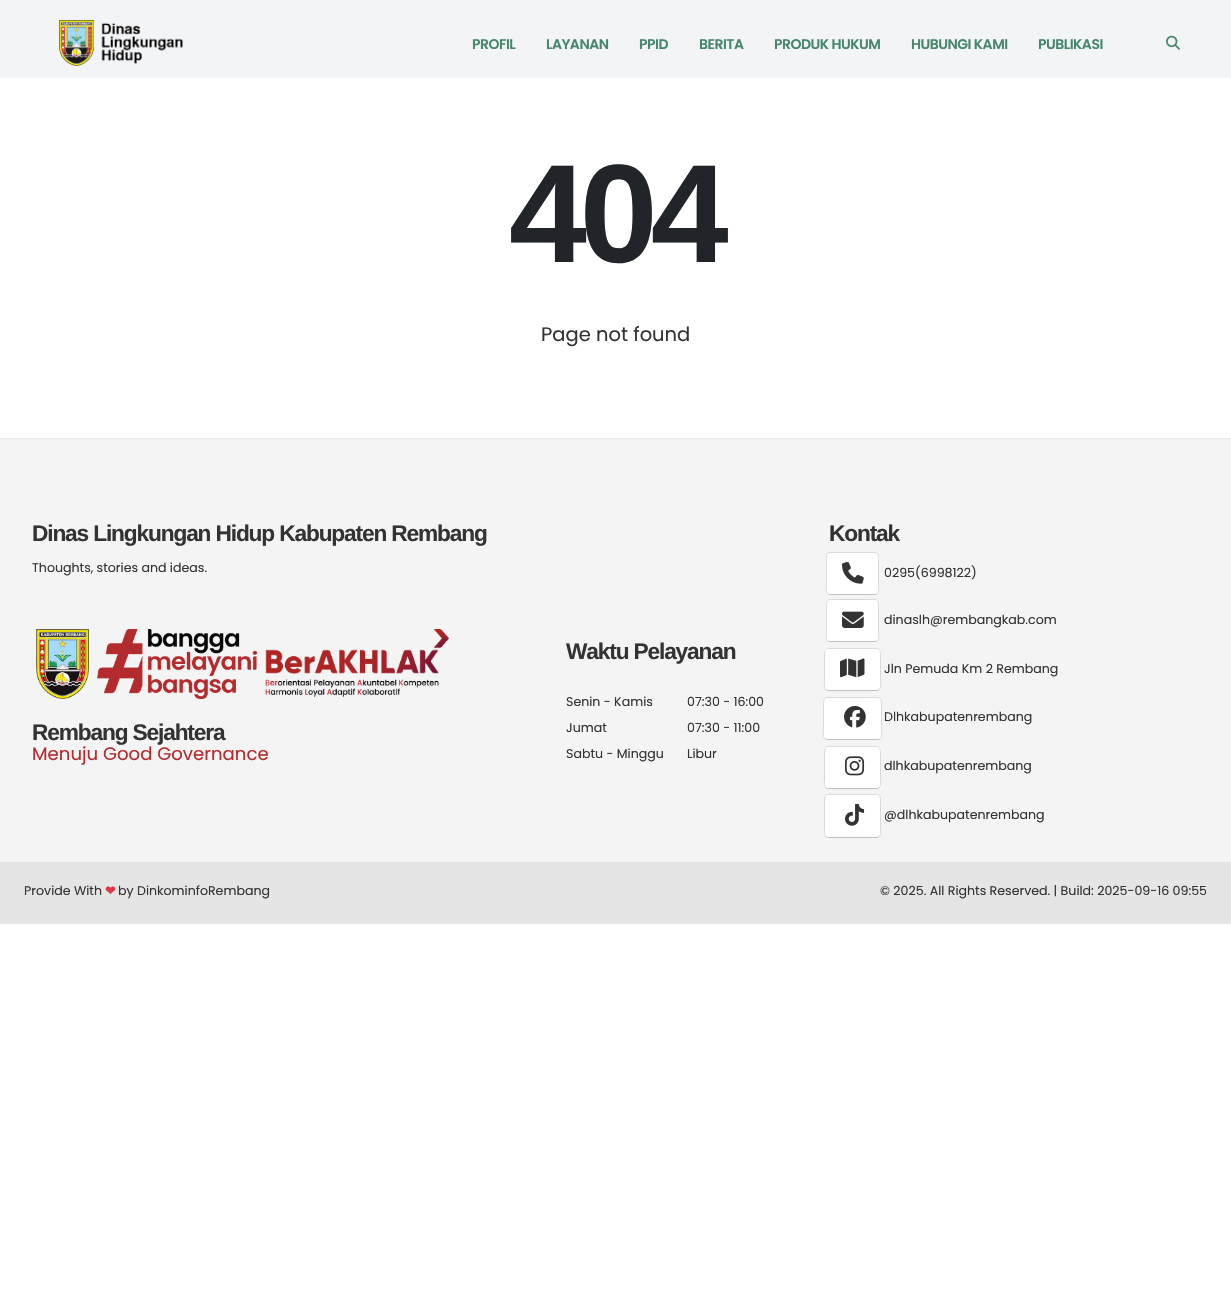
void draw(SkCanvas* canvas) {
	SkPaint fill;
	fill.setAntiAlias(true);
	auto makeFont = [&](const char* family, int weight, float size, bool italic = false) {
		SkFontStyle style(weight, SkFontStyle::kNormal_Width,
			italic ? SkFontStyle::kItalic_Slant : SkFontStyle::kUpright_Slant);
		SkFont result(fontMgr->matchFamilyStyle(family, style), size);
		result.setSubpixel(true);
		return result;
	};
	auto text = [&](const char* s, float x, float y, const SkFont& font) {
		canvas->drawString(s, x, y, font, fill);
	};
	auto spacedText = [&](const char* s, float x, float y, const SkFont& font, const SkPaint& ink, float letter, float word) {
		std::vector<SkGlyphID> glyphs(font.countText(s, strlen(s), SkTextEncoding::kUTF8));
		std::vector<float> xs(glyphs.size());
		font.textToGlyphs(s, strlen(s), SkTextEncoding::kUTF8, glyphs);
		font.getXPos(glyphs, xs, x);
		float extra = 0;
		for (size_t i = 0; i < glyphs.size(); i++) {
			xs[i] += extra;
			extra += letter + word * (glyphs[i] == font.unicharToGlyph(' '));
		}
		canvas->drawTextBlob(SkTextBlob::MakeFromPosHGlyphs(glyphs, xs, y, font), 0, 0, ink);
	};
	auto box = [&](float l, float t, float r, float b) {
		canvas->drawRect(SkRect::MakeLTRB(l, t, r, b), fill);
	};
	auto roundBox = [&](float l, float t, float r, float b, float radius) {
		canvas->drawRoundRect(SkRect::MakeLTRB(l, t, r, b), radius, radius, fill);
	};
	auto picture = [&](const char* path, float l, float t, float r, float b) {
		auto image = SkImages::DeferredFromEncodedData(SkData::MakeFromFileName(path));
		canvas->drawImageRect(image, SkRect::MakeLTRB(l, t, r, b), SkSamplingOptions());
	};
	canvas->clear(0xFFFFFFFF);
	fill.setColor(0xFFF3F4F6);
	box(0, 0, 1231, 78);
	picture("image0.png", 59, 20, 183, 67);
	picture("image1.png", 1166, 35, 1180, 50);
	fill.setColor(0xFFF4F4F4);
	box(0, 439, 1231, 862);
	fill.setColor(0xFFE8E8E8);
	box(0, 438, 1231, 439);
	picture("image2.png", 36, 629, 89, 699);
	picture("image3.png", 97, 629, 257, 699);
	picture("image4.png", 265, 629, 449, 697);
	fill.setColor(0xFFFFFFFF);
	roundBox(826, 552, 879, 595, 4);
	fill.setStyle(SkPaint::kStroke_Style);
	fill.setStrokeWidth(1);
	fill.setColor(0xFFBFBFBF);
	canvas->drawPath(SkPathBuilder().moveTo(877.5f, 593.5f).cubicTo(877, 594, 876, 594.5f, 875, 594.5f).lineTo(830, 594.5f).cubicTo(829, 594.5f, 828, 594, 827.5f, 593.5f).detach(), fill);
	fill.setColor(0xFFD9D9D9);
	canvas->drawPath(SkPathBuilder().moveTo(827.5f, 593.5f).cubicTo(825.5f, 591.5f, 826.5f, 587, 826.5f, 585).lineTo(826.5f, 562).cubicTo(826.5f, 551, 826.5f, 552.5f, 837.5f, 552.5f).lineTo(867.5f, 552.5f).cubicTo(878.5f, 552.5f, 878.5f, 551, 878.5f, 562).lineTo(878.5f, 585).cubicTo(878.5f, 587, 879.5f, 591.5f, 877.5f, 593.5f).detach(), fill);
	picture("image5.png", 842, 562, 864, 584);
	fill.setStyle(SkPaint::kFill_Style);
	fill.setColor(0xFFFFFFFF);
	roundBox(826, 599, 879, 642, 4);
	fill.setStyle(SkPaint::kStroke_Style);
	fill.setColor(0xFFBFBFBF);
	canvas->drawPath(SkPathBuilder().moveTo(877.5f, 640.5f).cubicTo(877, 641, 876, 641.5f, 875, 641.5f).lineTo(830, 641.5f).cubicTo(829, 641.5f, 828, 641, 827.5f, 640.5f).detach(), fill);
	fill.setColor(0xFFD9D9D9);
	canvas->drawPath(SkPathBuilder().moveTo(827.5f, 640.5f).cubicTo(825.5f, 638.5f, 826.5f, 634, 826.5f, 632).lineTo(826.5f, 609).cubicTo(826.5f, 598, 826.5f, 599.5f, 837.5f, 599.5f).lineTo(867.5f, 599.5f).cubicTo(878.5f, 599.5f, 878.5f, 598, 878.5f, 609).lineTo(878.5f, 632).cubicTo(878.5f, 634, 879.5f, 638.5f, 877.5f, 640.5f).detach(), fill);
	picture("image6.png", 842, 611, 864, 628);
	fill.setStyle(SkPaint::kFill_Style);
	fill.setColor(0xFFFFFFFF);
	roundBox(824, 648, 881, 691, 4);
	fill.setStyle(SkPaint::kStroke_Style);
	fill.setColor(0xFFBFBFBF);
	canvas->drawPath(SkPathBuilder().moveTo(879.5f, 689.5f).lineTo(877.5f, 690.5f).lineTo(827.5f, 690.5f).lineTo(825.5f, 689.5f).detach(), fill);
	fill.setColor(0xFFD9D9D9);
	canvas->drawPath(SkPathBuilder().moveTo(825.5f, 689.5f).cubicTo(823.5f, 687.5f, 824.5f, 683, 824.5f, 681).lineTo(824.5f, 658).cubicTo(824.5f, 647, 825, 648.5f, 836, 648.5f).lineTo(869, 648.5f).cubicTo(880, 648.5f, 880.5f, 647, 880.5f, 658).lineTo(880.5f, 681).cubicTo(880.5f, 683, 881.5f, 687.5f, 879.5f, 689.5f).detach(), fill);
	picture("image7.png", 840, 658, 865, 678);
	fill.setStyle(SkPaint::kFill_Style);
	fill.setColor(0xFFFFFFFF);
	roundBox(823, 697, 882, 740, 4);
	fill.setStyle(SkPaint::kStroke_Style);
	fill.setColor(0xFFBFBFBF);
	canvas->drawPath(SkPathBuilder().moveTo(880.5f, 738.5f).lineTo(878.5f, 739.5f).lineTo(826.5f, 739.5f).lineTo(824.5f, 738.5f).detach(), fill);
	fill.setColor(0xFFD9D9D9);
	canvas->drawPath(SkPathBuilder().moveTo(824.5f, 738.5f).cubicTo(822.5f, 736.5f, 823.5f, 732, 823.5f, 730).lineTo(823.5f, 707).cubicTo(823.5f, 696, 824, 697.5f, 835.5f, 697.5f).lineTo(869.5f, 697.5f).cubicTo(881, 697.5f, 881.5f, 696, 881.5f, 707).lineTo(881.5f, 730).cubicTo(881.5f, 732, 882.5f, 736.5f, 880.5f, 738.5f).detach(), fill);
	picture("image8.png", 844, 706, 866, 728);
	fill.setStyle(SkPaint::kFill_Style);
	fill.setColor(0xFFFFFFFF);
	roundBox(824, 746, 881, 789, 4);
	fill.setStyle(SkPaint::kStroke_Style);
	fill.setColor(0xFFBFBFBF);
	canvas->drawPath(SkPathBuilder().moveTo(879.5f, 787.5f).lineTo(877.5f, 788.5f).lineTo(827.5f, 788.5f).lineTo(825.5f, 787.5f).detach(), fill);
	fill.setColor(0xFFD9D9D9);
	canvas->drawPath(SkPathBuilder().moveTo(825.5f, 787.5f).cubicTo(823.5f, 785.5f, 824.5f, 781, 824.5f, 779).lineTo(824.5f, 756).cubicTo(824.5f, 745, 825, 746.5f, 836, 746.5f).lineTo(869, 746.5f).cubicTo(880, 746.5f, 880.5f, 745, 880.5f, 756).lineTo(880.5f, 779).cubicTo(880.5f, 781, 881.5f, 785.5f, 879.5f, 787.5f).detach(), fill);
	picture("image9.png", 845, 756, 865, 776);
	fill.setStyle(SkPaint::kFill_Style);
	fill.setColor(0xFFFFFFFF);
	roundBox(824, 794, 881, 838, 4);
	fill.setStyle(SkPaint::kStroke_Style);
	fill.setColor(0xFFBFBFBF);
	canvas->drawPath(SkPathBuilder().moveTo(879.5f, 836.5f).lineTo(877.5f, 837.5f).lineTo(827.5f, 837.5f).lineTo(825.5f, 836.5f).detach(), fill);
	fill.setColor(0xFFD9D9D9);
	canvas->drawPath(SkPathBuilder().moveTo(825.5f, 836.5f).cubicTo(823.5f, 834.5f, 824.5f, 829.5f, 824.5f, 828).lineTo(824.5f, 804).cubicTo(824.5f, 793, 824.5f, 794.5f, 836, 794.5f).lineTo(869, 794.5f).cubicTo(880.5f, 794.5f, 880.5f, 793, 880.5f, 804).lineTo(880.5f, 828).cubicTo(880.5f, 829.5f, 881.5f, 834.5f, 879.5f, 836.5f).detach(), fill);
	picture("image10.png", 845, 803, 865, 826);
	fill.setStyle(SkPaint::kFill_Style);
	fill.setColor(0xFFE5E5E5);
	box(0, 862, 1231, 924);
	auto font1 = makeFont("Poppins", 600, 14);
	fill.setColor(0xFF46866C);
	spacedText("PROFIL", 472, 49, font1, fill, -0.5f, 0);
	spacedText("LAYANAN", 546, 49, font1, fill, -0.5f, 0);
	spacedText("PPID", 639, 49, font1, fill, -0.5f, 0);
	spacedText("BERITA", 699, 49, font1, fill, -0.5f, 0);
	spacedText("PRODUK HUKUM", 774, 49, font1, fill, -0.5f, 0);
	spacedText("HUBUNGI KAMI", 911, 49, font1, fill, -0.5f, 0);
	spacedText("PUBLIKASI", 1038, 49, font1, fill, -0.5f, 0);
	auto font2 = makeFont("Liberation Sans", 700, 140);
	fill.setColor(0xFF212529);
	spacedText("404", 509, 262, font2, fill, -7, 0);
	auto font3 = makeFont("Poppins", 400, 19.5f);
	fill.setColor(0xFF333333);
	text("Page not found", 541, 341, font3);
	auto font4 = makeFont("Liberation Sans", 700, 22.7f);
	spacedText("Dinas Lingkungan Hidup Kabupaten Rembang", 32, 541, font4, fill, -1.15f, 0);
	auto font5 = makeFont("Poppins", 400, 12.6f);
	text("Thoughts, stories and ideas.", 32, 572, font5);
	spacedText("Rembang Sejahtera", 32, 740, font4, fill, -1.15f, 0);
	auto font6 = makeFont("Poppins", 400, 18.1f);
	fill.setColor(0xFFB42B2D);
	text("Menuju Good Governance", 32, 760, font6);
	fill.setColor(0xFF333333);
	spacedText("Waktu Pelayanan", 566, 659, font4, fill, -1.15f, 0);
	text("Senin - Kamis", 566, 706, font5);
	text("07:30 - 16:00", 687, 706, font5);
	text("Jumat", 566, 732, font5);
	text("07:30 - 11:00", 687, 732, font5);
	text("Sabtu - Minggu", 566, 758, font5);
	text("Libur", 687, 758, font5);
	spacedText("Kontak", 829, 541, font4, fill, -1.15f, 0);
	text("0295(6998122)", 884, 577, font5);
	text("dinaslh@rembangkab.com", 884, 624, font5);
	text("Jln Pemuda Km 2 Rembang", 884, 673, font5);
	text("Dlhkabupatenrembang", 884, 721, font5);
	text("dlhkabupatenrembang", 884, 770, font5);
	text("@dlhkabupatenrembang", 884, 819, font5);
	text("Provide With", 24, 895, font5);
	auto font7 = makeFont("DejaVu Sans", 700, 12.6f);
	fill.setColor(0xFFDC3545);
	text("❤", 105, 895, font7);
	fill.setColor(0xFF333333);
	text("by DinkominfoRembang", 118, 895, font5);
	text("© 2025. All Rights Reserved. | Build: 2025-09-16 09:55", 880, 895, font5);
}
